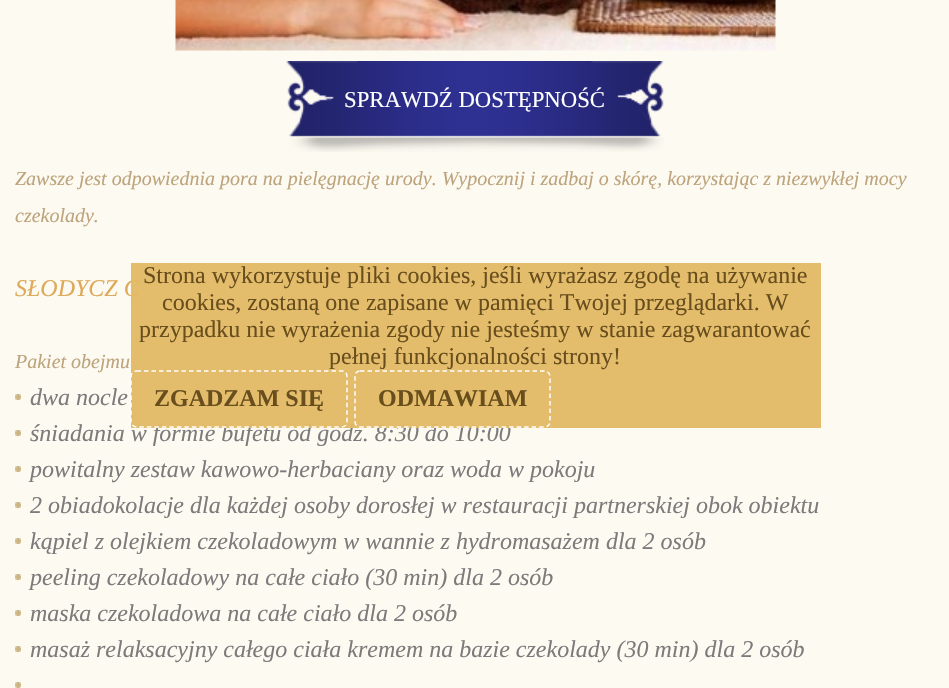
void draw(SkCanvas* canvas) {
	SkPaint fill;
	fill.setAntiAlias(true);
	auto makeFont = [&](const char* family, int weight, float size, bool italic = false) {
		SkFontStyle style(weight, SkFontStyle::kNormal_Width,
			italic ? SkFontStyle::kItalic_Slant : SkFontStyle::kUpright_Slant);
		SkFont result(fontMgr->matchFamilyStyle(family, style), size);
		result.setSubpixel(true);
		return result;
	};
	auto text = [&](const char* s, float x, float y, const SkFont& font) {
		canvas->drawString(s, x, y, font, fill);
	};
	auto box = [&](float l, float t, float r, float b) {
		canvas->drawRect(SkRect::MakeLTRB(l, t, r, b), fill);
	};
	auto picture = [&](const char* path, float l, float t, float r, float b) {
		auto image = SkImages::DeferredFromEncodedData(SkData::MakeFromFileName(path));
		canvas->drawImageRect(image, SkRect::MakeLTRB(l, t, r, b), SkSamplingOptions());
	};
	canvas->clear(0xFFFDFAF2);
	picture("image0.png", 175, 0, 776, 51);
	picture("image1.png", 286, 61, 664, 152);
	picture("image2.png", 15, 394, 21, 400);
	picture("image2.png", 15, 430, 21, 436);
	picture("image2.png", 15, 466, 21, 472);
	picture("image2.png", 15, 502, 21, 508);
	picture("image2.png", 15, 538, 21, 544);
	picture("image2.png", 15, 574, 21, 580);
	picture("image2.png", 15, 610, 21, 616);
	picture("image2.png", 15, 646, 21, 652);
	picture("image2.png", 15, 682, 21, 688);
	auto font1 = makeFont("Liberation Serif", 400, 22.75f);
	fill.setColor(0xFFFFFFFF);
	text("SPRAWDŹ DOSTĘPNOŚĆ", 344, 107, font1);
	auto font2 = makeFont("Liberation Serif", 400, 20, true);
	fill.setColor(0xFFBDA47C);
	text("Zawsze jest odpowiednia pora na pielęgnację urody. Wypocznij i zadbaj o skórę, korzystając z niezwykłej mocy", 15, 185, font2);
	text("czekolady.", 15, 222, font2);
	auto font3 = makeFont("Liberation Serif", 400, 24, true);
	fill.setColor(0xFFDEA959);
	text("SŁODYCZ C", 15, 296, font3);
	fill.setColor(0xFFBDA47C);
	text("Pakiet obejmu", 15, 368, font2);
	fill.setColor(0xFF7C7B7B);
	text("dwa nocle", 30, 405, font3);
	text("śniadania w formie bufetu od godz. 8:30 do 10:00", 30, 441, font3);
	text("powitalny zestaw kawowo-herbaciany oraz woda w pokoju", 30, 477, font3);
	text("2 obiadokolacje dla każdej osoby dorosłej w restauracji partnerskiej obok obiektu", 30, 513, font3);
	text("kąpiel z olejkiem czekoladowym w wannie z hydromasażem dla 2 osób", 30, 549, font3);
	text("peeling czekoladowy na całe ciało (30 min) dla 2 osób", 30, 585, font3);
	text("maska czekoladowa na całe ciało dla 2 osób", 30, 621, font3);
	text("masaż relaksacyjny całego ciała kremem na bazie czekolady (30 min) dla 2 osób", 30, 657, font3);
	fill.setColor(0xF2E1B963);
	box(131, 263, 821, 428);
	auto font4 = makeFont("Liberation Serif", 400, 24);
	fill.setColor(0xFF694E1D);
	text("Strona wykorzystuje pliki cookies, jeśli wyrażasz zgodę na używanie", 143, 283, font4);
	text("cookies, zostaną one zapisane w pamięci Twojej przeglądarki. W", 162, 310, font4);
	text("przypadku nie wyrażenia zgody nie jesteśmy w stanie zagwarantować", 139, 337, font4);
	text("pełnej funkcjonalności strony!", 329, 364, font4);
	fill.setStyle(SkPaint::kStroke_Style);
	fill.setStrokeWidth(1.5f);
	fill.setColor(0xFFFFFFFF);
	fill.setPathEffect(SkDashPathEffect::Make({{4.5f, 3}}, 0));
	canvas->drawPath(SkPathBuilder().moveTo(136.5f, 371).lineTo(342, 371).cubicTo(345, 371, 347, 373.5f, 347, 376.5f).lineTo(347, 421.5f).cubicTo(347, 424.5f, 345, 427, 342, 427).lineTo(136.5f, 427).cubicTo(133.5f, 427, 131, 424.5f, 131, 421.5f).lineTo(131, 376.5f).cubicTo(131, 373.5f, 133.5f, 371, 136.5f, 371).close().detach(), fill);
	fill.setPathEffect(nullptr);
	auto font5 = makeFont("Liberation Serif", 700, 24);
	fill.setStyle(SkPaint::kFill_Style);
	fill.setColor(0xFF694E1D);
	text("ZGADZAM SIĘ", 154, 406, font5);
	fill.setStyle(SkPaint::kStroke_Style);
	fill.setColor(0xFFFFFFFF);
	fill.setPathEffect(SkDashPathEffect::Make({{4.5f, 3}}, 0));
	canvas->drawPath(SkPathBuilder().moveTo(360, 371).lineTo(544.5f, 371).cubicTo(547.5f, 371, 550, 373.5f, 550, 376.5f).lineTo(550, 421.5f).cubicTo(550, 424.5f, 547.5f, 427, 544.5f, 427).lineTo(360, 427).cubicTo(357, 427, 355, 424.5f, 355, 421.5f).lineTo(355, 376.5f).cubicTo(355, 373.5f, 357, 371, 360, 371).close().detach(), fill);
	fill.setPathEffect(nullptr);
	fill.setStyle(SkPaint::kFill_Style);
	fill.setColor(0xFF694E1D);
	text("ODMAWIAM", 378, 406, font5);
}
